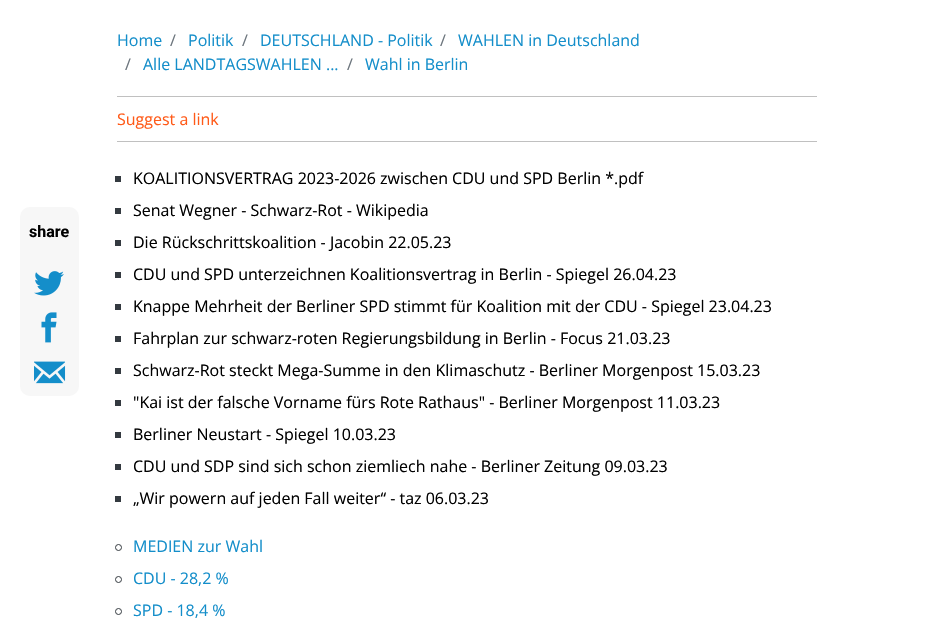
void draw(SkCanvas* canvas) {
	SkPaint fill;
	fill.setAntiAlias(true);
	auto makeFont = [&](const char* family, int weight, float size, bool italic = false) {
		SkFontStyle style(weight, SkFontStyle::kNormal_Width,
			italic ? SkFontStyle::kItalic_Slant : SkFontStyle::kUpright_Slant);
		SkFont result(fontMgr->matchFamilyStyle(family, style), size);
		result.setSubpixel(true);
		return result;
	};
	auto text = [&](const char* s, float x, float y, const SkFont& font) {
		canvas->drawString(s, x, y, font, fill);
	};
	auto box = [&](float l, float t, float r, float b) {
		canvas->drawRect(SkRect::MakeLTRB(l, t, r, b), fill);
	};
	auto roundBox = [&](float l, float t, float r, float b, float radius) {
		canvas->drawRoundRect(SkRect::MakeLTRB(l, t, r, b), radius, radius, fill);
	};
	auto picture = [&](const char* path, float l, float t, float r, float b) {
		auto image = SkImages::DeferredFromEncodedData(SkData::MakeFromFileName(path));
		canvas->drawImageRect(image, SkRect::MakeLTRB(l, t, r, b), SkSamplingOptions());
	};
	canvas->clear(0xFFFFFFFF);
	fill.setColor(0xFFF7F7F7);
	roundBox(20, 207, 79, 396, 10);
	picture("image0.png", 34, 271, 64, 296);
	picture("image1.png", 41, 312, 57, 343);
	picture("image2.png", 34, 361, 66, 384);
	fill.setColor(0xFFC0C0C0);
	box(117, 96, 817, 97);
	box(117, 141, 817, 142);
	fill.setColor(0xFF343A40);
	box(115, 176, 121, 182);
	box(115, 208, 121, 214);
	box(115, 240, 121, 246);
	box(115, 272, 121, 278);
	box(115, 304, 121, 310);
	box(115, 336, 121, 342);
	box(115, 368, 121, 374);
	box(115, 400, 121, 406);
	box(115, 432, 121, 438);
	box(115, 464, 121, 470);
	box(115, 496, 121, 502);
	fill.setStyle(SkPaint::kStroke_Style);
	fill.setStrokeWidth(1);
	canvas->drawCircle(118.5f, 547.5f, 3, fill);
	canvas->drawCircle(118.5f, 579.5f, 3, fill);
	canvas->drawCircle(118.5f, 611.5f, 3, fill);
	auto font1 = makeFont("Roboto", 700, 16);
	fill.setStyle(SkPaint::kFill_Style);
	fill.setColor(0xFF000000);
	text("share", 29, 237, font1);
	auto font2 = makeFont("Open Sans", 400, 16);
	fill.setColor(0xFF148ECA);
	text("Home", 117, 46, font2);
	fill.setColor(0xFF6C757D);
	text("/", 170, 46, font2);
	fill.setColor(0xFF148ECA);
	text("Politik", 188, 46, font2);
	fill.setColor(0xFF6C757D);
	text("/", 242, 46, font2);
	fill.setColor(0xFF148ECA);
	text("DEUTSCHLAND - Politik", 260, 46, font2);
	fill.setColor(0xFF6C757D);
	text("/", 440, 46, font2);
	fill.setColor(0xFF148ECA);
	text("WAHLEN in Deutschland", 458, 46, font2);
	fill.setColor(0xFF6C757D);
	text("/", 125, 70, font2);
	fill.setColor(0xFF148ECA);
	text("Alle LANDTAGSWAHLEN ...", 143, 70, font2);
	fill.setColor(0xFF6C757D);
	text("/", 347, 70, font2);
	fill.setColor(0xFF148ECA);
	text("Wahl in Berlin", 365, 70, font2);
	fill.setColor(0xFFFF5A18);
	text("Suggest a link", 117, 125, font2);
	fill.setColor(0xFF000000);
	text("KOALITIONSVERTRAG 2023-2026 zwischen CDU und SPD Berlin *.pdf", 133, 184, font2);
	text("Senat Wegner - Schwarz-Rot - Wikipedia", 133, 216, font2);
	text("Die Rückschrittskoalition - Jacobin 22.05.23", 133, 248, font2);
	text("CDU und SPD unterzeichnen Koalitionsvertrag in Berlin - Spiegel 26.04.23", 133, 280, font2);
	text("Knappe Mehrheit der Berliner SPD stimmt für Koalition mit der CDU - Spiegel 23.04.23", 133, 312, font2);
	text("Fahrplan zur schwarz-roten Regierungsbildung in Berlin - Focus 21.03.23", 133, 344, font2);
	text("Schwarz-Rot steckt Mega-Summe in den Klimaschutz - Berliner Morgenpost 15.03.23", 133, 376, font2);
	text("\"Kai ist der falsche Vorname fürs Rote Rathaus\" - Berliner Morgenpost 11.03.23", 133, 408, font2);
	text("Berliner Neustart - Spiegel 10.03.23", 133, 440, font2);
	text("CDU und SDP sind sich schon ziemliech nahe - Berliner Zeitung 09.03.23", 133, 472, font2);
	text("„Wir powern auf jeden Fall weiter“ - taz 06.03.23", 133, 504, font2);
	fill.setColor(0xFF148ECA);
	text("MEDIEN zur Wahl", 133, 552, font2);
	text("CDU - 28,2 %", 133, 584, font2);
	text("SPD - 18,4 %", 133, 616, font2);
}
